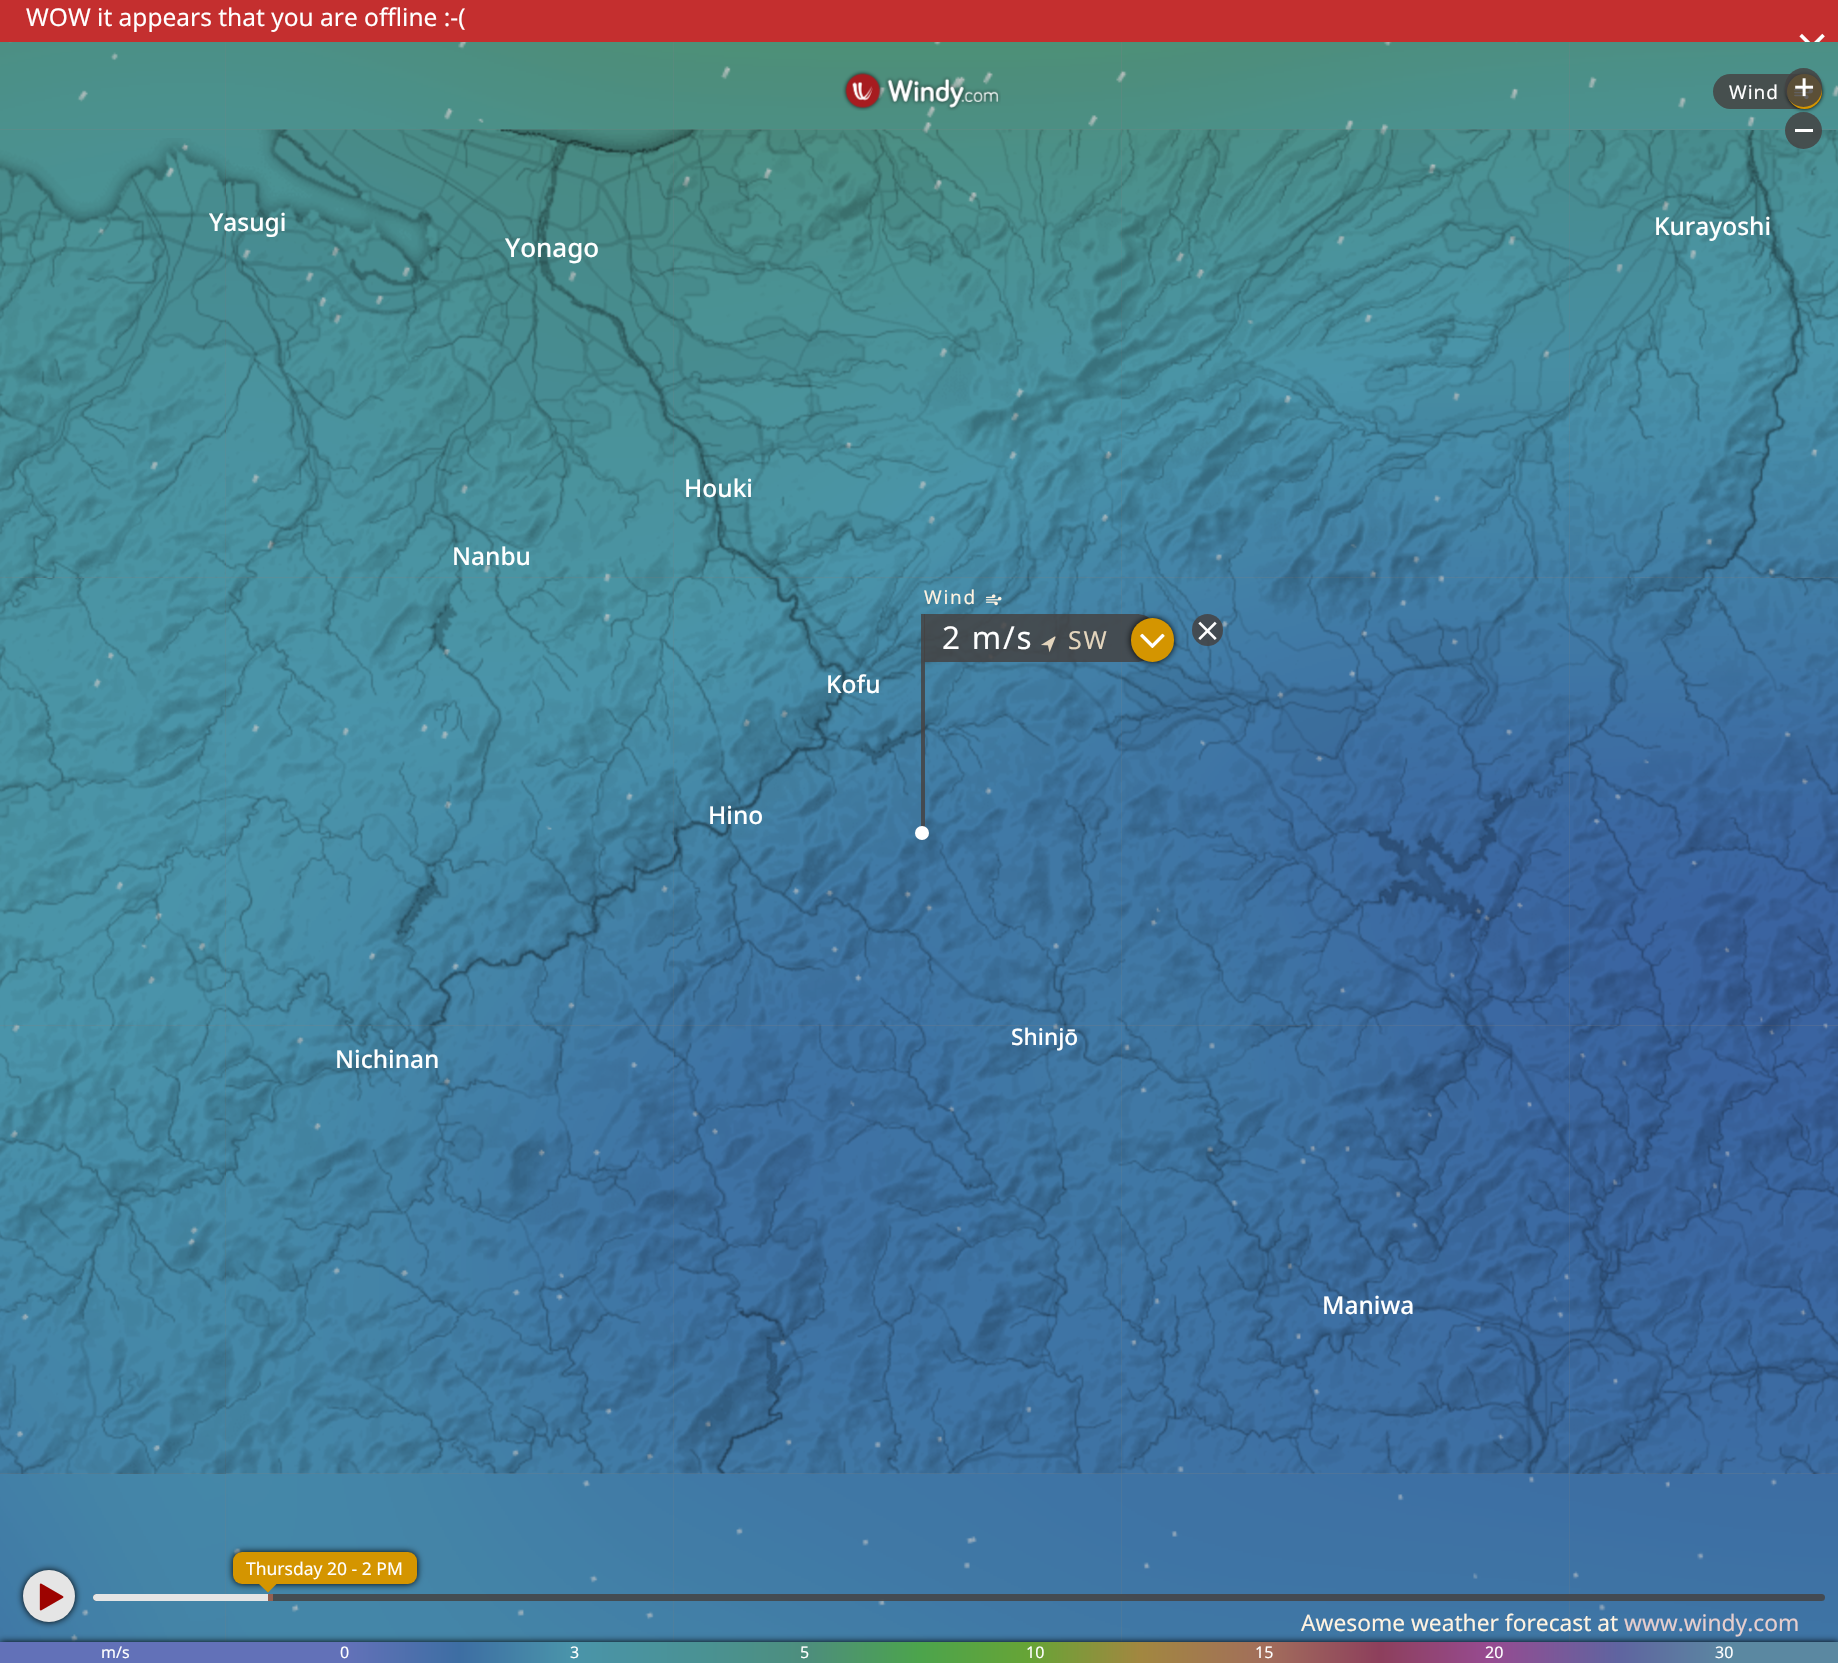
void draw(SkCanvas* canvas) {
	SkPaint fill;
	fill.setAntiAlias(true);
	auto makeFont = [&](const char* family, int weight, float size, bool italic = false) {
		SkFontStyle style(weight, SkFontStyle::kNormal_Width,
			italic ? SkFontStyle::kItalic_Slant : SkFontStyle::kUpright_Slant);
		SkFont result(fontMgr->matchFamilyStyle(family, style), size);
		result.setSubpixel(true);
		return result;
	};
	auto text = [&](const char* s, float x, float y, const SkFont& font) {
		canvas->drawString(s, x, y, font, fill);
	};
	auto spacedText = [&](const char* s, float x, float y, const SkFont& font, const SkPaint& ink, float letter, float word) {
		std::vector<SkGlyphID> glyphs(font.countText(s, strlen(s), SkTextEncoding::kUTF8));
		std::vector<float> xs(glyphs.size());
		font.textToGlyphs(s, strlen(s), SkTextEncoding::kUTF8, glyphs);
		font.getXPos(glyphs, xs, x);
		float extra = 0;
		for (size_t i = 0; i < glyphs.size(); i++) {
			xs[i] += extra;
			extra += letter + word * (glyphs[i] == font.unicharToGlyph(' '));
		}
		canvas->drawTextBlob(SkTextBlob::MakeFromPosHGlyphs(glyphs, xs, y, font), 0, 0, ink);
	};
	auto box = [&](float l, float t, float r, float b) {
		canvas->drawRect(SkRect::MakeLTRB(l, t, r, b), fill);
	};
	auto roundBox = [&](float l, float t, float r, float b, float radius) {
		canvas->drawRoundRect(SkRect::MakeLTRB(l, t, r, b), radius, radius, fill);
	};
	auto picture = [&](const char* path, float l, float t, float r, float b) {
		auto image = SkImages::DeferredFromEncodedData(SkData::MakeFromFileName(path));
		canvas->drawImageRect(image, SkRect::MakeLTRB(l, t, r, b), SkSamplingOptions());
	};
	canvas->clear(0xFF808080);
	fill.setColor(0xFFC42F2F);
	box(0, 0, 1838, 42);
	picture("image0.png", 1799, 33, 1825, 42);
	picture("image17.png", 673, 577, 1122, 1026);
	picture("image12.png", 673, 129, 1122, 578);
	picture("image16.png", 225, 577, 674, 1026);
	picture("image11.png", 225, 129, 674, 578);
	picture("image18.png", 1121, 577, 1570, 1026);
	picture("image13.png", 1121, 129, 1570, 578);
	picture("image7.png", 673, 42, 1122, 130);
	picture("image6.png", 225, 42, 674, 130);
	picture("image22.png", 673, 1025, 1122, 1474);
	picture("image21.png", 225, 1025, 674, 1474);
	picture("image15.png", 0, 577, 226, 1026);
	picture("image10.png", 0, 129, 226, 578);
	picture("image5.png", 0, 42, 226, 130);
	picture("image8.png", 1122, 42, 1570, 130);
	picture("image23.png", 1121, 1025, 1570, 1474);
	picture("image19.png", 1569, 577, 1838, 1026);
	picture("image14.png", 1569, 129, 1838, 578);
	picture("image9.png", 1570, 42, 1838, 130);
	picture("image20.png", 0, 1025, 226, 1474);
	picture("image24.png", 1569, 1025, 1838, 1474);
	picture("image27.png", 673, 1473, 1122, 1642);
	picture("image26.png", 225, 1473, 674, 1642);
	picture("image25.png", 0, 1473, 226, 1642);
	picture("image28.png", 1121, 1473, 1570, 1642);
	picture("image29.png", 1569, 1473, 1838, 1642);
	picture("image30.png", 8, 42, 1838, 1642);
	picture("image1.png", 842, 70, 884, 111);
	picture("image2.png", 885, 76, 1001, 111);
	fill.setColor(0xD6444141);
	roundBox(1713, 74, 1822, 109, 17.5f);
	fill.setColor(0xFF000000);
	fill.setMaskFilter(SkMaskFilter::MakeBlur(kNormal_SkBlurStyle, 2));
	canvas->drawRoundRect(SkRect::MakeLTRB(1787, 74, 1822, 109), 17.5f, 17.5f, fill);
	fill.setMaskFilter(nullptr);
	fill.setColor(0xFFD49500);
	canvas->drawCircle(1804.5f, 91.5f, 17.5f, fill);
	picture("image3.png", 1794, 88, 1813, 100);
	fill.setColor(0xD6444141);
	roundBox(1785, 68, 1822, 107, 18.5f);
	picture("image4.png", 1795, 78, 1814, 97);
	picture("image35.png", 1570, 130, 1838, 578);
	canvas->drawCircle(1803.5f, 130.5f, 18.5f, fill);
	fill.setColor(0xFFFFFFFF);
	box(1795, 129, 1813, 132);
	picture("image38.png", 673, 577, 1122, 1026);
	picture("image33.png", 673, 129, 1122, 578);
	picture("image37.png", 225, 577, 674, 1026);
	picture("image32.png", 225, 129, 674, 578);
	picture("image31.png", 0, 138, 226, 578);
	picture("image39.png", 1121, 577, 1570, 1026);
	picture("image34.png", 1121, 129, 1570, 578);
	picture("image43.png", 673, 1025, 1122, 1474);
	picture("image42.png", 225, 1025, 674, 1474);
	picture("image36.png", 0, 578, 226, 1026);
	picture("image40.png", 1570, 578, 1838, 1026);
	picture("image41.png", 0, 1026, 226, 1474);
	picture("image44.png", 1121, 1025, 1570, 1474);
	picture("image45.png", 1570, 1026, 1838, 1474);
	fill.setColor(0xD6444141);
	box(921, 614, 925, 833);
	fill.setColor(0xFFFFFFFF);
	canvas->drawCircle(922, 833, 7, fill);
	fill.setColor(0xD6444141);
	canvas->drawPath(SkPathBuilder().moveTo(924, 614).lineTo(1136, 614).cubicTo(1149.5f, 614, 1160, 624.5f, 1160, 638).cubicTo(1160, 651.5f, 1149.5f, 662, 1136, 662).lineTo(924, 662).close().detach(), fill);
	picture("image46.png", 985, 594, 1002, 606);
	picture("image47.png", 1041, 636, 1056, 653);
	fill.setColor(0xFF000000);
	fill.setMaskFilter(SkMaskFilter::MakeBlur(kNormal_SkBlurStyle, 3.5f));
	canvas->drawRoundRect(SkRect::MakeLTRB(1131, 618, 1174, 662), 21.5f, 21.5f, fill);
	fill.setMaskFilter(nullptr);
	fill.setColor(0xFFD49500);
	roundBox(1131, 618, 1174, 662, 21.5f);
	picture("image48.png", 1140, 633, 1165, 648);
	fill.setColor(0xD6444141);
	roundBox(1192, 614, 1223, 646, 15.5f);
	picture("image49.png", 1198, 621, 1217, 640);
	fill.setColor(0xFF000000);
	fill.setMaskFilter(SkMaskFilter::MakeBlur(kNormal_SkBlurStyle, 3.5f));
	canvas->drawRoundRect(SkRect::MakeLTRB(23, 1570, 75, 1622), 26, 26, fill);
	fill.setMaskFilter(nullptr);
	fill.setColor(0xFFE5E5E5);
	canvas->drawCircle(49, 1596, 26, fill);
	picture("image50.png", 39, 1583, 64, 1611);
	fill.setColor(0xFF000000);
	fill.setMaskFilter(SkMaskFilter::MakeBlur(kNormal_SkBlurStyle, 3.5f));
	canvas->drawRoundRect(SkRect::MakeLTRB(233, 1552, 417, 1584), 9, 9, fill);
	fill.setMaskFilter(nullptr);
	fill.setColor(0xFFD49500);
	roundBox(233, 1552, 417, 1584, 9);
	canvas->drawPath(SkPathBuilder().moveTo(259, 1584).lineTo(276.5f, 1584).lineTo(268, 1592.5f).close().detach(), fill);
	fill.setColor(0xD6444141);
	roundBox(93, 1594, 1825, 1601, 3.5f);
	fill.setColor(0xFFE5E5E5);
	canvas->drawPath(SkPathBuilder().moveTo(96.5f, 1594).lineTo(268, 1594).lineTo(268, 1601).lineTo(96.5f, 1601).cubicTo(94.5f, 1601, 93, 1599.5f, 93, 1597.5f).cubicTo(93, 1595.5f, 94.5f, 1594, 96.5f, 1594).close().detach(), fill);
	fill.setColor(0xFF946051);
	box(268, 1594, 273, 1601);
	fill.setColor(0xFF000000);
	fill.setMaskFilter(SkMaskFilter::MakeBlur(kNormal_SkBlurStyle, 3.5f));
	canvas->drawRect(SkRect::MakeLTRB(0, 1642, 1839, 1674), fill);
	fill.setMaskFilter(nullptr);
	{
		const SkColor colors[] = {0xFF6271B8, 0xFF6271B8, 0xFF3D6EA3, 0xFF4A94AA, 0xFF4A9294, 0xFF4D8E7C, 0xFF4CA44C, 0xFF67A436, 0xFFA28740, 0xFFA26D5C, 0xFF8D3F5C, 0xFF974B91, 0xFF5F64A0, 0xFF5B88A1, 0xFF5B88A1};
		const float stops[] = {0, 0.19f, 0.25f, 0.31f, 0.38f, 0.44f, 0.5f, 0.56f, 0.62f, 0.69f, 0.75f, 0.81f, 0.88f, 0.94f, 1};
		const SkPoint ends[] = {{0, 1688}, {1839, 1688}};
		fill.setShader(SkGradientShader::MakeLinear(ends, colors, stops, 15, SkTileMode::kClamp));
		fill.setAlpha(255);
	}
	box(0, 1642, 1838, 1663);
	auto font1 = makeFont("Noto Sans", 400, 24.5f);
	fill.setShader(nullptr);
	fill.setColor(0xFFFFFFFF);
	text("WOW it appears that you are offline :-(", 26, 26, font1);
	auto font2 = makeFont("Noto Sans", 400, 19);
	spacedText("Wind", 1729, 99, font2, fill, 1, 0);
	auto font3 = makeFont("Noto Sans", 500, 24.5f);
	text("Yasugi", 209, 231, font3);
	auto font4 = makeFont("Noto Sans", 500, 26);
	text("Yonago", 505, 257, font4);
	text("Nanbu", 452, 565, font3);
	text("Kurayoshi", 1654, 235, font3);
	text("Houki", 684, 497, font3);
	text("Kofu", 826, 693, font3);
	text("Hino", 708, 824, font3);
	auto font5 = makeFont("Noto Sans", 500, 22.75f);
	text("Shinjō", 1011, 1045, font5);
	text("Nichinan", 335, 1068, font3);
	text("Maniwa", 1322, 1314, font3);
	fill.setColor(0xFFFFF3E1);
	spacedText("Wind", 924, 604, font2, fill, 1.75f, 0);
	auto font6 = makeFont("Noto Sans", 400, 31.5f);
	fill.setColor(0xFFFFFFFF);
	spacedText("2 m/s", 942, 649, font6, fill, 1.75f, 0);
	auto font7 = makeFont("Noto Sans", 400, 25);
	fill.setColor(0xFFE4D5BD);
	spacedText("SW", 1068, 649, font7, fill, 1.75f, 0);
	auto font8 = makeFont("Noto Sans", 400, 17.5f);
	fill.setColor(0xFFFFFFFF);
	text("Thursday 20 - 2 PM", 246, 1575, font8);
	auto font9 = makeFont("Noto Sans", 400, 22.75f);
	fill.setColor(0xFFFFF3E1);
	text("Awesome weather forecast at", 1301, 1631, font9);
	fill.setColor(0xFFE6CECE);
	text("www.windy.com", 1624, 1631, font9);
	auto font10 = makeFont("Noto Sans", 400, 16);
	fill.setColor(0xFFFFFFFF);
	text("m/s", 101, 1658, font10);
	text("0", 340, 1658, font10);
	text("3", 570, 1658, font10);
	text("5", 800, 1658, font10);
	text("10", 1026, 1658, font10);
	text("15", 1255, 1658, font10);
	text("20", 1485, 1658, font10);
	text("30", 1715, 1658, font10);
}
